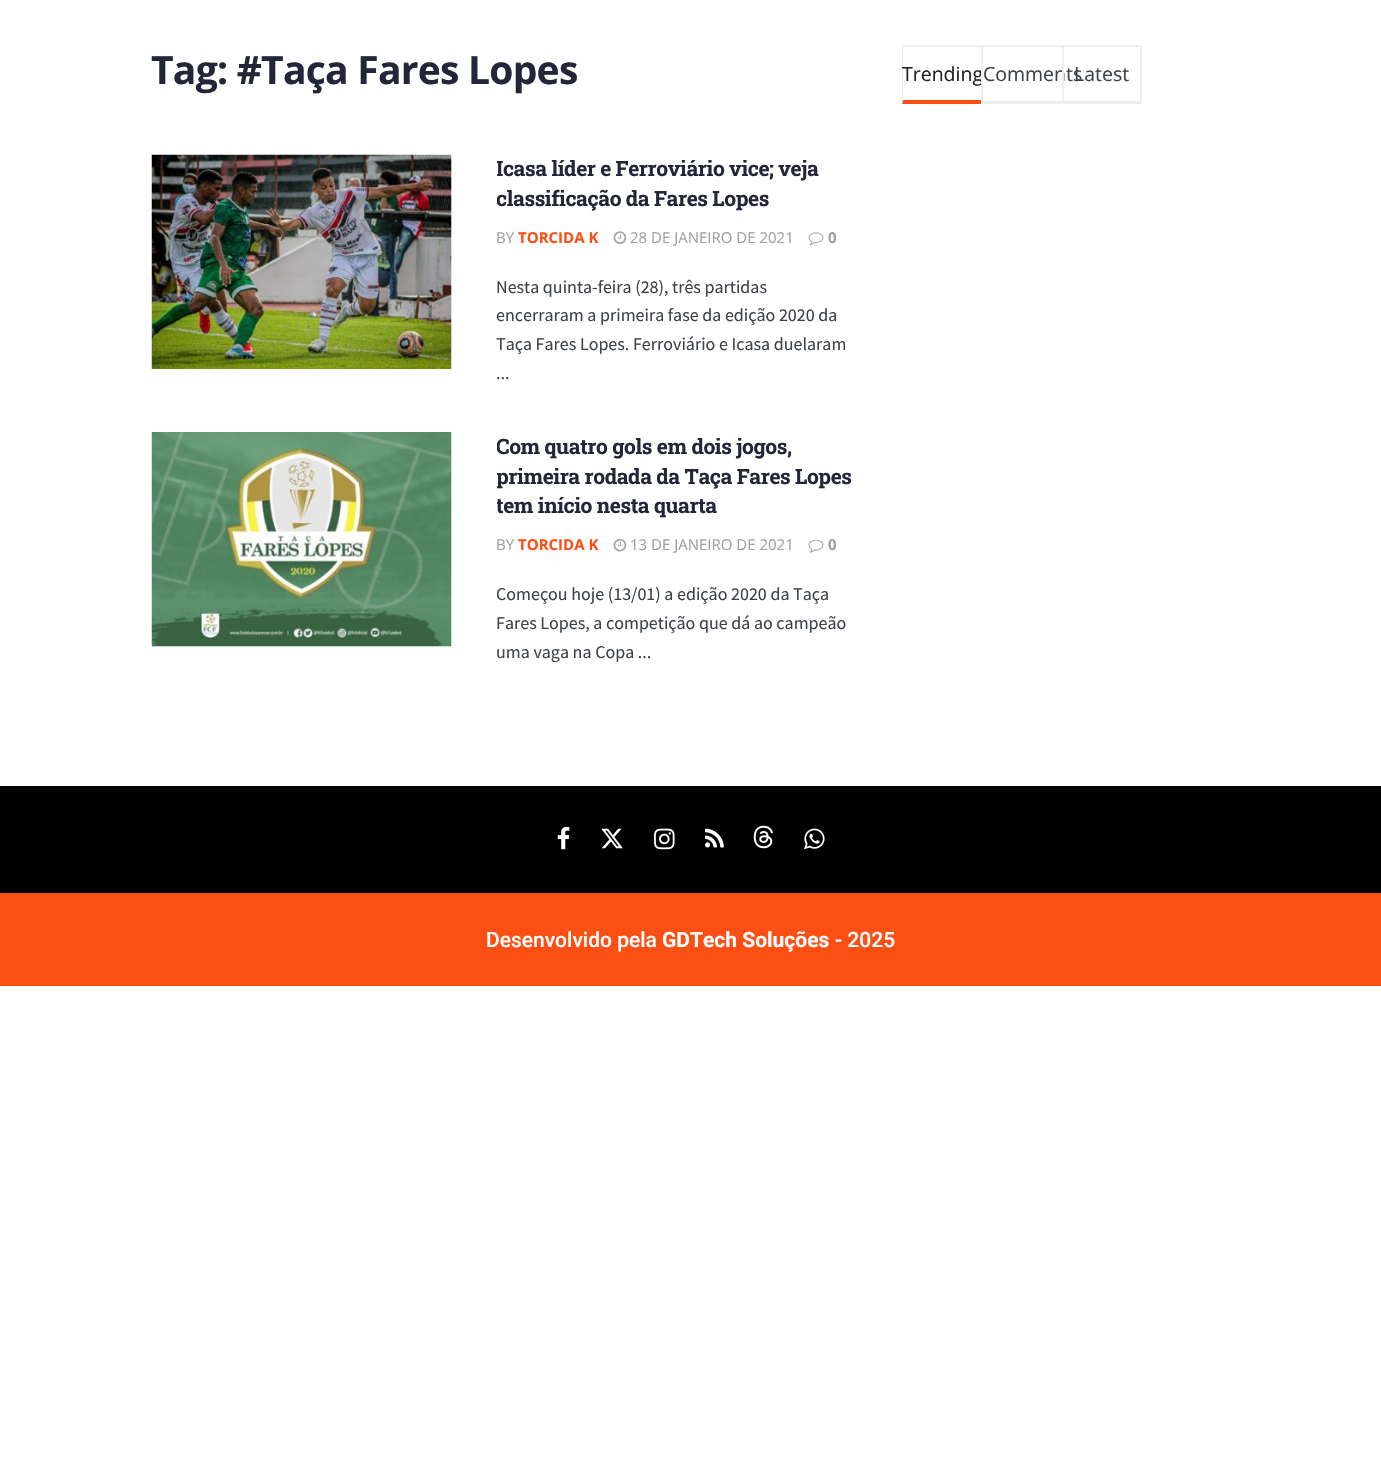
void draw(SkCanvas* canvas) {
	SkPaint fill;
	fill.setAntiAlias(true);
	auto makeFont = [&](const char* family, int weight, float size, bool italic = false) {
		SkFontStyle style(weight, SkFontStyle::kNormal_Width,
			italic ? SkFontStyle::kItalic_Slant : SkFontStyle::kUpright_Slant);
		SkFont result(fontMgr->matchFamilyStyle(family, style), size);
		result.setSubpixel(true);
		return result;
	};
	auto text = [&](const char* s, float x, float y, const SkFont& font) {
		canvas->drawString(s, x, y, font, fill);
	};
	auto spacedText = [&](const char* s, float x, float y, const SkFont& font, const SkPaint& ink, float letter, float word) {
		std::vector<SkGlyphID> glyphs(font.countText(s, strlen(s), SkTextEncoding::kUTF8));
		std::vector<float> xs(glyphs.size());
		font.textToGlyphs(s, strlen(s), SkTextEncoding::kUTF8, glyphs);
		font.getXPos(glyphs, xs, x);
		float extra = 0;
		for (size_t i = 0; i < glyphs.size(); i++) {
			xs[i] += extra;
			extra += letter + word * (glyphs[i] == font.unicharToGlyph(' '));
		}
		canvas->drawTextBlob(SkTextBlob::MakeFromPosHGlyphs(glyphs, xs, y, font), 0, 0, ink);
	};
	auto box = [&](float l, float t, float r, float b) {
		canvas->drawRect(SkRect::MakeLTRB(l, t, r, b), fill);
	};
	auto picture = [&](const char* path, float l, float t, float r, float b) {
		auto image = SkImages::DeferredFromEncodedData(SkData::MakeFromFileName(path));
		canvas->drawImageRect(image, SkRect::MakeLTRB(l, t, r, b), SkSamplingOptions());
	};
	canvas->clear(0xFFFFFFFF);
	fill.setColor(0xFFF7F7F7);
	box(451, 155, 452, 369);
	picture("image0.png", 151, 154, 452, 369);
	picture("image1.png", 613, 231, 627, 244);
	picture("image2.png", 808, 232, 824, 246);
	box(152, 432, 452, 647);
	picture("image3.png", 151, 432, 452, 647);
	picture("image4.png", 613, 538, 627, 552);
	picture("image5.png", 808, 539, 824, 553);
	fill.setColor(0xFFEEEEEE);
	box(902, 45, 1142, 47);
	fill.setColor(0xFFFA5015);
	canvas->drawPath(SkPathBuilder().moveTo(981, 104).lineTo(902, 104).lineTo(903, 100).lineTo(981, 100).close().detach(), fill);
	fill.setColor(0xFFEEEEEE);
	canvas->drawPath(SkPathBuilder().moveTo(902, 104).lineTo(902, 45).lineTo(903, 46).lineTo(903, 100).close().detach(), fill);
	box(981, 101, 1062, 104);
	box(1140, 45, 1142, 104);
	box(1062, 101, 1142, 104);
	fill.setColor(0xFF000000);
	box(0, 786, 1381, 893);
	picture("image6.png", 557, 826, 570, 850);
	picture("image7.png", 601, 828, 623, 849);
	picture("image8.png", 654, 828, 675, 850);
	picture("image9.png", 705, 828, 724, 848);
	picture("image10.png", 753, 825, 774, 849);
	picture("image11.png", 804, 828, 825, 850);
	fill.setColor(0xFFFB4F14);
	box(0, 893, 1381, 986);
	auto font1 = makeFont("Open Sans", 700, 39);
	fill.setColor(0xFF222638);
	spacedText("Tag: #Taça Fares Lopes", 151, 84, font1, fill, -0.75f, 0);
	canvas->save();
	canvas->clipRect(SkRect::MakeLTRB(497, 155, 857, 387));
	auto font2 = makeFont("Roboto Slab", 700, 21);
	spacedText("Icasa líder e Ferroviário vice; veja", 496, 176, font2, fill, -0.4f, 0);
	spacedText("classificação da Fares Lopes", 496, 206, font2, fill, -0.4f, 0);
	canvas->restore();
	auto font3 = makeFont("Open Sans", 400, 15);
	fill.setColor(0xFFA0A0A0);
	text("BY", 496, 243, font3);
	auto font4 = makeFont("Open Sans", 700, 15);
	fill.setColor(0xFFFA5015);
	text("TORCIDA K", 518, 243, font4);
	fill.setColor(0xFFA0A0A0);
	text("28 DE JANEIRO DE 2021", 630, 243, font3);
	text("0", 828, 243, font4);
	auto font5 = makeFont("Source Sans Pro", 400, 18);
	fill.setColor(0xFF3D4248);
	text("Nesta quinta-feira (28), três partidas", 496, 293, font5);
	canvas->save();
	canvas->clipRect(SkRect::MakeLTRB(497, 155, 857, 387));
	text("encerraram a primeira fase da edição 2020 da", 496, 321, font5);
	canvas->restore();
	text("Taça Fares Lopes. Ferroviário e Icasa duelaram", 496, 350, font5);
	text("...", 496, 379, font5);
	canvas->save();
	canvas->clipRect(SkRect::MakeLTRB(497, 432, 857, 666));
	fill.setColor(0xFF222638);
	spacedText("Com quatro gols em dois jogos,", 496, 454, font2, fill, -0.4f, 0);
	spacedText("primeira rodada da Taça Fares Lopes", 496, 484, font2, fill, -0.4f, 0);
	spacedText("tem início nesta quarta", 496, 513, font2, fill, -0.4f, 0);
	canvas->restore();
	fill.setColor(0xFFA0A0A0);
	text("BY", 496, 550, font3);
	fill.setColor(0xFFFA5015);
	text("TORCIDA K", 518, 550, font4);
	fill.setColor(0xFFA0A0A0);
	text("13 DE JANEIRO DE 2021", 630, 550, font3);
	text("0", 828, 550, font4);
	canvas->save();
	canvas->clipRect(SkRect::MakeLTRB(497, 432, 857, 666));
	fill.setColor(0xFF3D4248);
	text("Começou hoje (13/01) a edição 2020 da Taça", 496, 600, font5);
	canvas->restore();
	text("Fares Lopes, a competição que dá ao campeão", 496, 629, font5);
	text("uma vaga na Copa ...", 496, 658, font5);
	auto font6 = makeFont("Open Sans", 400, 19.5f);
	fill.setColor(0xFF212121);
	text("Trending", 902, 81, font6);
	fill.setColor(0xFFEEEEEE);
	box(981, 45, 983, 104);
	fill.setColor(0xFF3D4248);
	text("Comments", 983, 81, font6);
	fill.setColor(0xFFEEEEEE);
	box(1062, 45, 1064, 104);
	fill.setColor(0xFF3D4248);
	text("Latest", 1074, 81, font6);
	auto font7 = makeFont("Roboto", 500, 21);
	fill.setColor(0xFFFFFFFF);
	text("Desenvolvido pela", 486, 947, font7);
	auto font8 = makeFont("Roboto", 700, 21);
	text("GDTech Soluções", 662, 947, font8);
	text("- 2025", 835, 947, font7);
}
